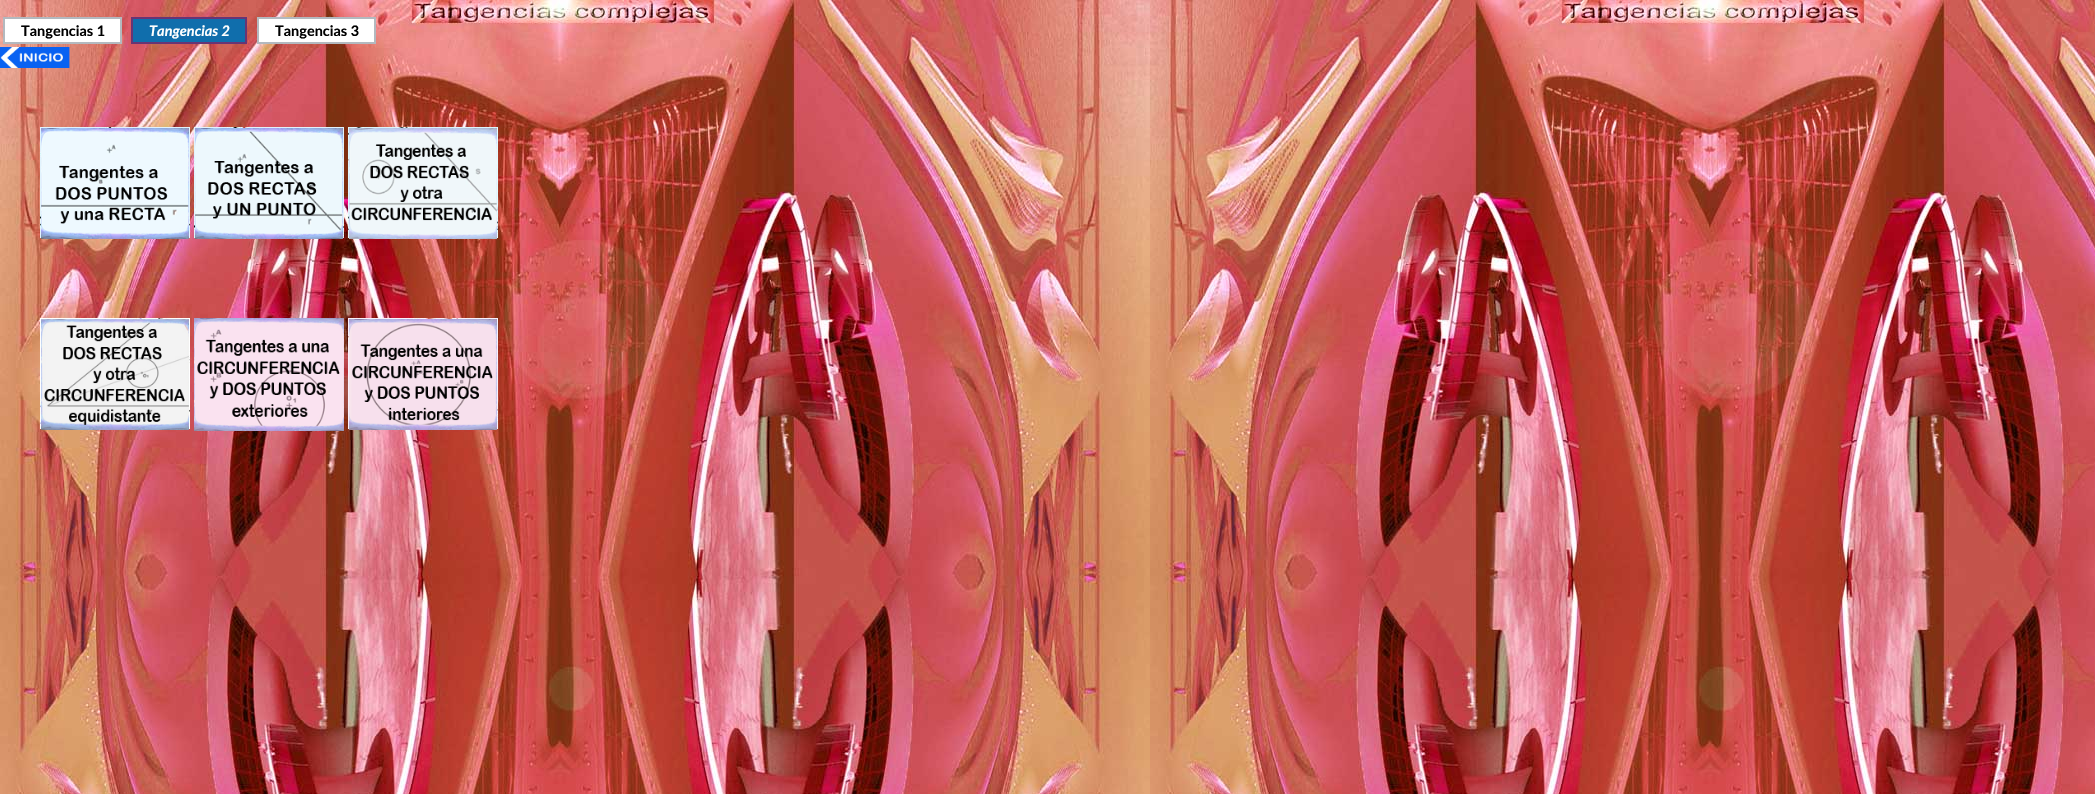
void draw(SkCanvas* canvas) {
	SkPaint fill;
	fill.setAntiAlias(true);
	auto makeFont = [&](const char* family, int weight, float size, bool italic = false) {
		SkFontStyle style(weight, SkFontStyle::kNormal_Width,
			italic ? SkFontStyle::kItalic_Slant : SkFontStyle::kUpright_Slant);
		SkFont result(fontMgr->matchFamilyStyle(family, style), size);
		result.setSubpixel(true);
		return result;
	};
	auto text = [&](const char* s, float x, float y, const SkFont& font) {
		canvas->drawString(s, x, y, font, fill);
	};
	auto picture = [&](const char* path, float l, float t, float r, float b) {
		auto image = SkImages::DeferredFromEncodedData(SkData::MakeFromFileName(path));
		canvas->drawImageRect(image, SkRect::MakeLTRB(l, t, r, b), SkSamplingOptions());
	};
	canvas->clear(0xFFFFFFFF);
	picture("image0.png", 0, 0, 2095, 794);
	fill.setColor(0xFFFFFFFF);
	canvas->drawRect(SkRect::MakeLTRB(4, 18, 121, 43), fill);
	fill.setStyle(SkPaint::kStroke_Style);
	fill.setStrokeWidth(2);
	fill.setColor(0xFFB3B9BF);
	canvas->drawRect(SkRect::MakeLTRB(4, 18, 121, 43), fill);
	fill.setStyle(SkPaint::kFill_Style);
	fill.setColor(0xFF106EAC);
	canvas->drawRect(SkRect::MakeLTRB(132, 18, 246, 43), fill);
	fill.setStyle(SkPaint::kStroke_Style);
	fill.setColor(0xFF683474);
	canvas->drawRect(SkRect::MakeLTRB(132, 18, 246, 43), fill);
	fill.setStyle(SkPaint::kFill_Style);
	fill.setColor(0xFFFFFFFF);
	canvas->drawRect(SkRect::MakeLTRB(258, 18, 375, 43), fill);
	fill.setStyle(SkPaint::kStroke_Style);
	fill.setColor(0xFFB3B9BF);
	canvas->drawRect(SkRect::MakeLTRB(258, 18, 375, 43), fill);
	picture("image1.png", 0, 47, 70, 68);
	picture("image2.png", 40, 127, 190, 238);
	picture("image3.png", 41, 128, 189, 239);
	picture("image4.png", 194, 127, 344, 238);
	picture("image5.png", 195, 128, 343, 239);
	picture("image6.png", 348, 127, 498, 238);
	picture("image7.png", 349, 128, 497, 239);
	picture("image8.png", 40, 318, 190, 429);
	picture("image9.png", 41, 319, 189, 430);
	picture("image10.png", 194, 318, 344, 431);
	picture("image11.png", 348, 318, 498, 429);
	picture("image12.png", 349, 319, 497, 430);
	auto font1 = makeFont("Lato", 700, 14.5f);
	fill.setStyle(SkPaint::kFill_Style);
	fill.setColor(0xFF000000);
	text("Tangencias 1", 21, 36, font1);
	auto font2 = makeFont("Lato", 700, 14.5f, true);
	fill.setColor(0xFFFFFFFF);
	text("Tangencias 2", 149, 36, font2);
	fill.setColor(0xFF000000);
	text("Tangencias 3", 275, 36, font1);
}
